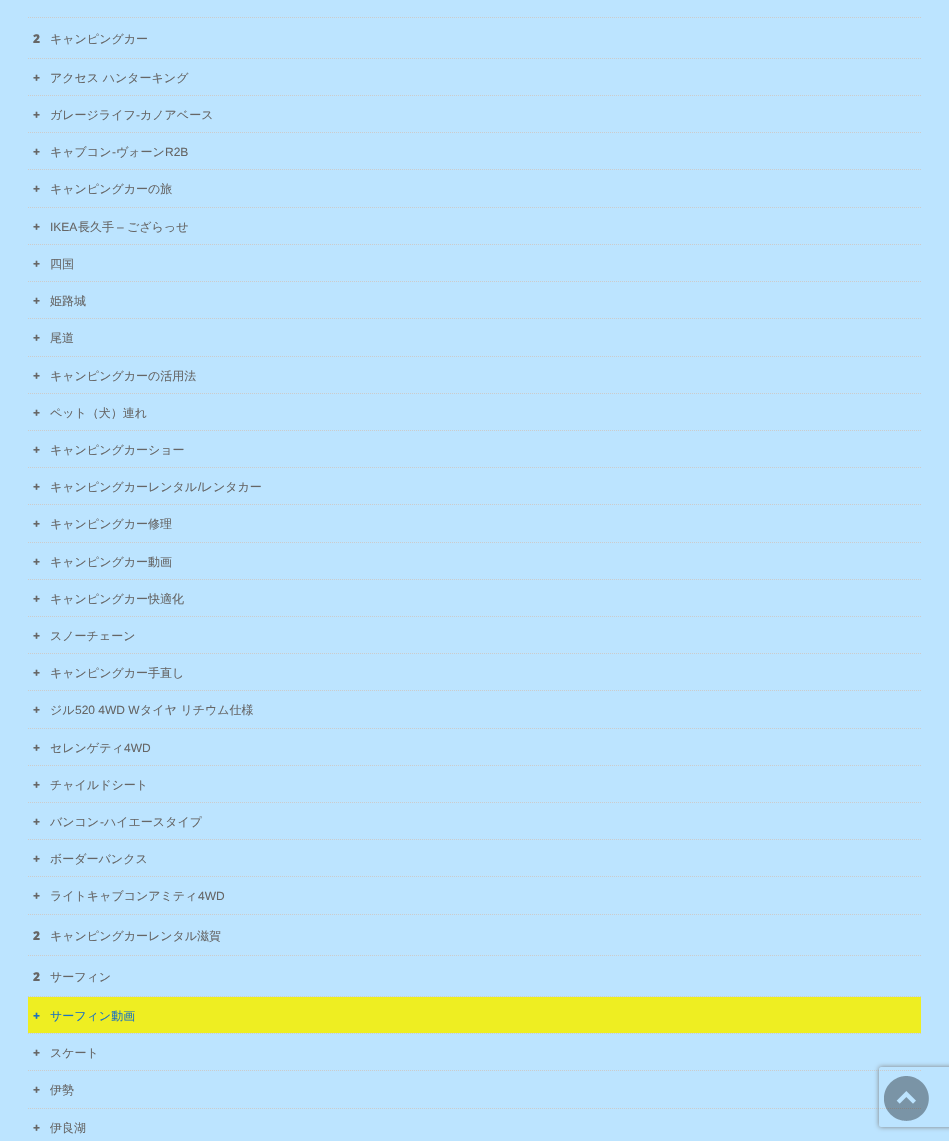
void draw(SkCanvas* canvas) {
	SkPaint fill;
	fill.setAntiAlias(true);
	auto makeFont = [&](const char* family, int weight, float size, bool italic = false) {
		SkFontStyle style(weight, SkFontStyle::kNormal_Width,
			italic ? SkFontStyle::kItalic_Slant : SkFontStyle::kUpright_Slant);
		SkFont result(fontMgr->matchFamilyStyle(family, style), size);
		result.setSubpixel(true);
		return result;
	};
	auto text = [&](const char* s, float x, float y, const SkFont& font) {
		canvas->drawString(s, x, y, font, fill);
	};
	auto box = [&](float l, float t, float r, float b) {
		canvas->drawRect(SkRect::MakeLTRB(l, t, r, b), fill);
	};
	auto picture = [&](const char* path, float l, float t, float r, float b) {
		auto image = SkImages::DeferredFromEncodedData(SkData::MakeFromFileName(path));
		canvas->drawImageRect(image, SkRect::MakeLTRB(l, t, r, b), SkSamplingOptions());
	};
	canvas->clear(0xFFBCE4FF);
	fill.setStyle(SkPaint::kStroke_Style);
	fill.setStrokeWidth(1);
	fill.setColor(0xFFCCCCCC);
	fill.setPathEffect(SkDashPathEffect::Make({{1, 1}}, 0));
	canvas->drawPath(SkPathBuilder().moveTo(28, 17.5f).lineTo(921, 17.5f).detach(), fill);
	fill.setPathEffect(nullptr);
	fill.setPathEffect(SkDashPathEffect::Make({{1, 1}}, 0));
	canvas->drawPath(SkPathBuilder().moveTo(28, 914.5f).lineTo(921, 914.5f).detach(), fill);
	fill.setPathEffect(nullptr);
	fill.setPathEffect(SkDashPathEffect::Make({{1, 1}}, 0));
	canvas->drawPath(SkPathBuilder().moveTo(28, 58.5f).lineTo(921, 58.5f).detach(), fill);
	fill.setPathEffect(nullptr);
	fill.setPathEffect(SkDashPathEffect::Make({{1, 1}}, 0));
	canvas->drawPath(SkPathBuilder().moveTo(28, 95.5f).lineTo(921, 95.5f).detach(), fill);
	fill.setPathEffect(nullptr);
	fill.setPathEffect(SkDashPathEffect::Make({{1, 1}}, 0));
	canvas->drawPath(SkPathBuilder().moveTo(28, 132.5f).lineTo(921, 132.5f).detach(), fill);
	fill.setPathEffect(nullptr);
	fill.setPathEffect(SkDashPathEffect::Make({{1, 1}}, 0));
	canvas->drawPath(SkPathBuilder().moveTo(28, 169.5f).lineTo(921, 169.5f).detach(), fill);
	fill.setPathEffect(nullptr);
	fill.setPathEffect(SkDashPathEffect::Make({{1, 1}}, 0));
	canvas->drawPath(SkPathBuilder().moveTo(28, 207.5f).lineTo(921, 207.5f).detach(), fill);
	fill.setPathEffect(nullptr);
	fill.setPathEffect(SkDashPathEffect::Make({{1, 1}}, 0));
	canvas->drawPath(SkPathBuilder().moveTo(28, 244.5f).lineTo(921, 244.5f).detach(), fill);
	fill.setPathEffect(nullptr);
	fill.setPathEffect(SkDashPathEffect::Make({{1, 1}}, 0));
	canvas->drawPath(SkPathBuilder().moveTo(28, 281.5f).lineTo(921, 281.5f).detach(), fill);
	fill.setPathEffect(nullptr);
	fill.setPathEffect(SkDashPathEffect::Make({{1, 1}}, 0));
	canvas->drawPath(SkPathBuilder().moveTo(28, 318.5f).lineTo(921, 318.5f).detach(), fill);
	fill.setPathEffect(nullptr);
	fill.setPathEffect(SkDashPathEffect::Make({{1, 1}}, 0));
	canvas->drawPath(SkPathBuilder().moveTo(28, 356.5f).lineTo(921, 356.5f).detach(), fill);
	fill.setPathEffect(nullptr);
	fill.setPathEffect(SkDashPathEffect::Make({{1, 1}}, 0));
	canvas->drawPath(SkPathBuilder().moveTo(28, 393.5f).lineTo(921, 393.5f).detach(), fill);
	fill.setPathEffect(nullptr);
	fill.setPathEffect(SkDashPathEffect::Make({{1, 1}}, 0));
	canvas->drawPath(SkPathBuilder().moveTo(28, 430.5f).lineTo(921, 430.5f).detach(), fill);
	fill.setPathEffect(nullptr);
	fill.setPathEffect(SkDashPathEffect::Make({{1, 1}}, 0));
	canvas->drawPath(SkPathBuilder().moveTo(28, 467.5f).lineTo(921, 467.5f).detach(), fill);
	fill.setPathEffect(nullptr);
	fill.setPathEffect(SkDashPathEffect::Make({{1, 1}}, 0));
	canvas->drawPath(SkPathBuilder().moveTo(28, 504.5f).lineTo(921, 504.5f).detach(), fill);
	fill.setPathEffect(nullptr);
	fill.setPathEffect(SkDashPathEffect::Make({{1, 1}}, 0));
	canvas->drawPath(SkPathBuilder().moveTo(28, 542.5f).lineTo(921, 542.5f).detach(), fill);
	fill.setPathEffect(nullptr);
	fill.setPathEffect(SkDashPathEffect::Make({{1, 1}}, 0));
	canvas->drawPath(SkPathBuilder().moveTo(28, 579.5f).lineTo(921, 579.5f).detach(), fill);
	fill.setPathEffect(nullptr);
	fill.setPathEffect(SkDashPathEffect::Make({{1, 1}}, 0));
	canvas->drawPath(SkPathBuilder().moveTo(28, 616.5f).lineTo(921, 616.5f).detach(), fill);
	fill.setPathEffect(nullptr);
	fill.setPathEffect(SkDashPathEffect::Make({{1, 1}}, 0));
	canvas->drawPath(SkPathBuilder().moveTo(28, 653.5f).lineTo(921, 653.5f).detach(), fill);
	fill.setPathEffect(nullptr);
	fill.setPathEffect(SkDashPathEffect::Make({{1, 1}}, 0));
	canvas->drawPath(SkPathBuilder().moveTo(28, 690.5f).lineTo(921, 690.5f).detach(), fill);
	fill.setPathEffect(nullptr);
	fill.setPathEffect(SkDashPathEffect::Make({{1, 1}}, 0));
	canvas->drawPath(SkPathBuilder().moveTo(28, 728.5f).lineTo(921, 728.5f).detach(), fill);
	fill.setPathEffect(nullptr);
	fill.setPathEffect(SkDashPathEffect::Make({{1, 1}}, 0));
	canvas->drawPath(SkPathBuilder().moveTo(28, 765.5f).lineTo(921, 765.5f).detach(), fill);
	fill.setPathEffect(nullptr);
	fill.setPathEffect(SkDashPathEffect::Make({{1, 1}}, 0));
	canvas->drawPath(SkPathBuilder().moveTo(28, 802.5f).lineTo(921, 802.5f).detach(), fill);
	fill.setPathEffect(nullptr);
	fill.setPathEffect(SkDashPathEffect::Make({{1, 1}}, 0));
	canvas->drawPath(SkPathBuilder().moveTo(28, 839.5f).lineTo(921, 839.5f).detach(), fill);
	fill.setPathEffect(nullptr);
	fill.setPathEffect(SkDashPathEffect::Make({{1, 1}}, 0));
	canvas->drawPath(SkPathBuilder().moveTo(28, 876.5f).lineTo(921, 876.5f).detach(), fill);
	fill.setPathEffect(nullptr);
	fill.setPathEffect(SkDashPathEffect::Make({{1, 1}}, 0));
	canvas->drawPath(SkPathBuilder().moveTo(28, 955.5f).lineTo(921, 955.5f).detach(), fill);
	fill.setPathEffect(nullptr);
	fill.setPathEffect(SkDashPathEffect::Make({{1, 1}}, 0));
	canvas->drawPath(SkPathBuilder().moveTo(28, 996.5f).lineTo(921, 996.5f).detach(), fill);
	fill.setPathEffect(nullptr);
	fill.setStyle(SkPaint::kFill_Style);
	fill.setColor(0xFFEEEE22);
	box(28, 997, 921, 1033);
	fill.setStyle(SkPaint::kStroke_Style);
	fill.setColor(0xFFCCCCCC);
	fill.setPathEffect(SkDashPathEffect::Make({{1, 1}}, 0));
	canvas->drawPath(SkPathBuilder().moveTo(28, 1033.5f).lineTo(921, 1033.5f).detach(), fill);
	fill.setPathEffect(nullptr);
	fill.setPathEffect(SkDashPathEffect::Make({{1, 1}}, 0));
	canvas->drawPath(SkPathBuilder().moveTo(28, 1070.5f).lineTo(921, 1070.5f).detach(), fill);
	fill.setPathEffect(nullptr);
	fill.setPathEffect(SkDashPathEffect::Make({{1, 1}}, 0));
	canvas->drawPath(SkPathBuilder().moveTo(28, 1108.5f).lineTo(921, 1108.5f).detach(), fill);
	fill.setPathEffect(nullptr);
	canvas->save();
	canvas->clipPath(SkPathBuilder(SkPathFillType::kEvenOdd).moveTo(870, 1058).lineTo(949, 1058).lineTo(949, 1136).lineTo(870, 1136).close().moveTo(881, 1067).lineTo(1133, 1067).cubicTo(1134, 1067, 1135, 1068, 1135, 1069).lineTo(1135, 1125).cubicTo(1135, 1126, 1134, 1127, 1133, 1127).lineTo(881, 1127).cubicTo(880, 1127, 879, 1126, 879, 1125).lineTo(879, 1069).cubicTo(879, 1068, 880, 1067, 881, 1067).close().detach(), true);
	fill.setStyle(SkPaint::kFill_Style);
	fill.setColor(0xFF808080);
	fill.setMaskFilter(SkMaskFilter::MakeBlur(kNormal_SkBlurStyle, 2.5f));
	canvas->drawRoundRect(SkRect::MakeLTRB(879, 1067, 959, 1127), 2, 2, fill);
	fill.setMaskFilter(nullptr);
	canvas->restore();
	picture("image0.png", 884, 1076, 929, 1121);
	auto font1 = makeFont("Noto Sans", 900, 12);
	fill.setColor(0xFF666666);
	text("2", 33, 43, font1);
	auto font2 = makeFont("WenQuanYi Zen Hei", 500, 12);
	text("キャンピングカー", 50, 43, font2);
	text("+", 33, 82, font1);
	text("アクセス ハンターキング", 50, 82, font2);
	text("+", 33, 119, font1);
	text("ガレージライフ", 50, 119, font2);
	auto font3 = makeFont("Liberation Sans", 400, 12);
	text("-", 136, 119, font3);
	text("カノアベース", 140, 119, font2);
	text("+", 33, 156, font1);
	text("キャブコン", 50, 156, font2);
	text("-", 112, 156, font3);
	text("ヴォーン", 116, 156, font2);
	text("R2B", 165, 156, font3);
	text("+", 33, 193, font1);
	text("キャンピングカーの旅", 50, 193, font2);
	text("+", 33, 231, font1);
	text("IKEA", 50, 231, font3);
	text("長久手", 78, 231, font2);
	text("–", 117, 231, font3);
	text("ござらっせ", 127, 231, font2);
	text("+", 33, 268, font1);
	text("四国", 50, 268, font2);
	text("+", 33, 305, font1);
	text("姫路城", 50, 305, font2);
	text("+", 33, 342, font1);
	text("尾道", 50, 342, font2);
	text("+", 33, 380, font1);
	text("キャンピングカーの活用法", 50, 380, font2);
	text("+", 33, 417, font1);
	text("ペット（犬）連れ", 50, 417, font2);
	text("+", 33, 454, font1);
	text("キャンピングカーショー", 50, 454, font2);
	text("キャンピングカーレンタル レンタカー", 50, 491, font2);
	text("+", 33, 491, font1);
	text("/", 198, 491, font3);
	text("+", 33, 528, font1);
	text("キャンピングカー修理", 50, 528, font2);
	text("+", 33, 566, font1);
	text("キャンピングカー動画", 50, 566, font2);
	text("+", 33, 603, font1);
	text("キャンピングカー快適化", 50, 603, font2);
	text("+", 33, 640, font1);
	text("スノーチェーン", 50, 640, font2);
	text("+", 33, 677, font1);
	text("キャンピングカー手直し", 50, 677, font2);
	text("+", 33, 714, font1);
	text("ジル", 50, 714, font2);
	text("520 4WD W", 75, 714, font3);
	text("タイヤ リチウム仕様", 140, 714, font2);
	text("+", 33, 752, font1);
	text("セレンゲティ", 50, 752, font2);
	text("4WD", 124, 752, font3);
	text("+", 33, 789, font1);
	text("チャイルドシート", 50, 789, font2);
	text("+", 33, 826, font1);
	text("バンコン", 50, 826, font2);
	text("-", 100, 826, font3);
	text("ハイエースタイプ", 104, 826, font2);
	text("+", 33, 863, font1);
	text("ボーダーバンクス", 50, 863, font2);
	text("+", 33, 900, font1);
	text("ライトキャブコンアミティ", 50, 900, font2);
	text("4WD", 198, 900, font3);
	text("2", 33, 940, font1);
	text("キャンピングカーレンタル滋賀", 50, 940, font2);
	text("2", 33, 981, font1);
	text("サーフィン", 50, 981, font2);
	fill.setColor(0xFF1E73BE);
	text("+", 33, 1020, font1);
	text("サーフィン動画", 50, 1020, font2);
	fill.setColor(0xFF666666);
	text("+", 33, 1057, font1);
	text("スケート", 50, 1057, font2);
	text("+", 33, 1094, font1);
	text("伊勢", 50, 1094, font2);
	text("+", 33, 1132, font1);
	text("伊良湖", 50, 1132, font2);
}
